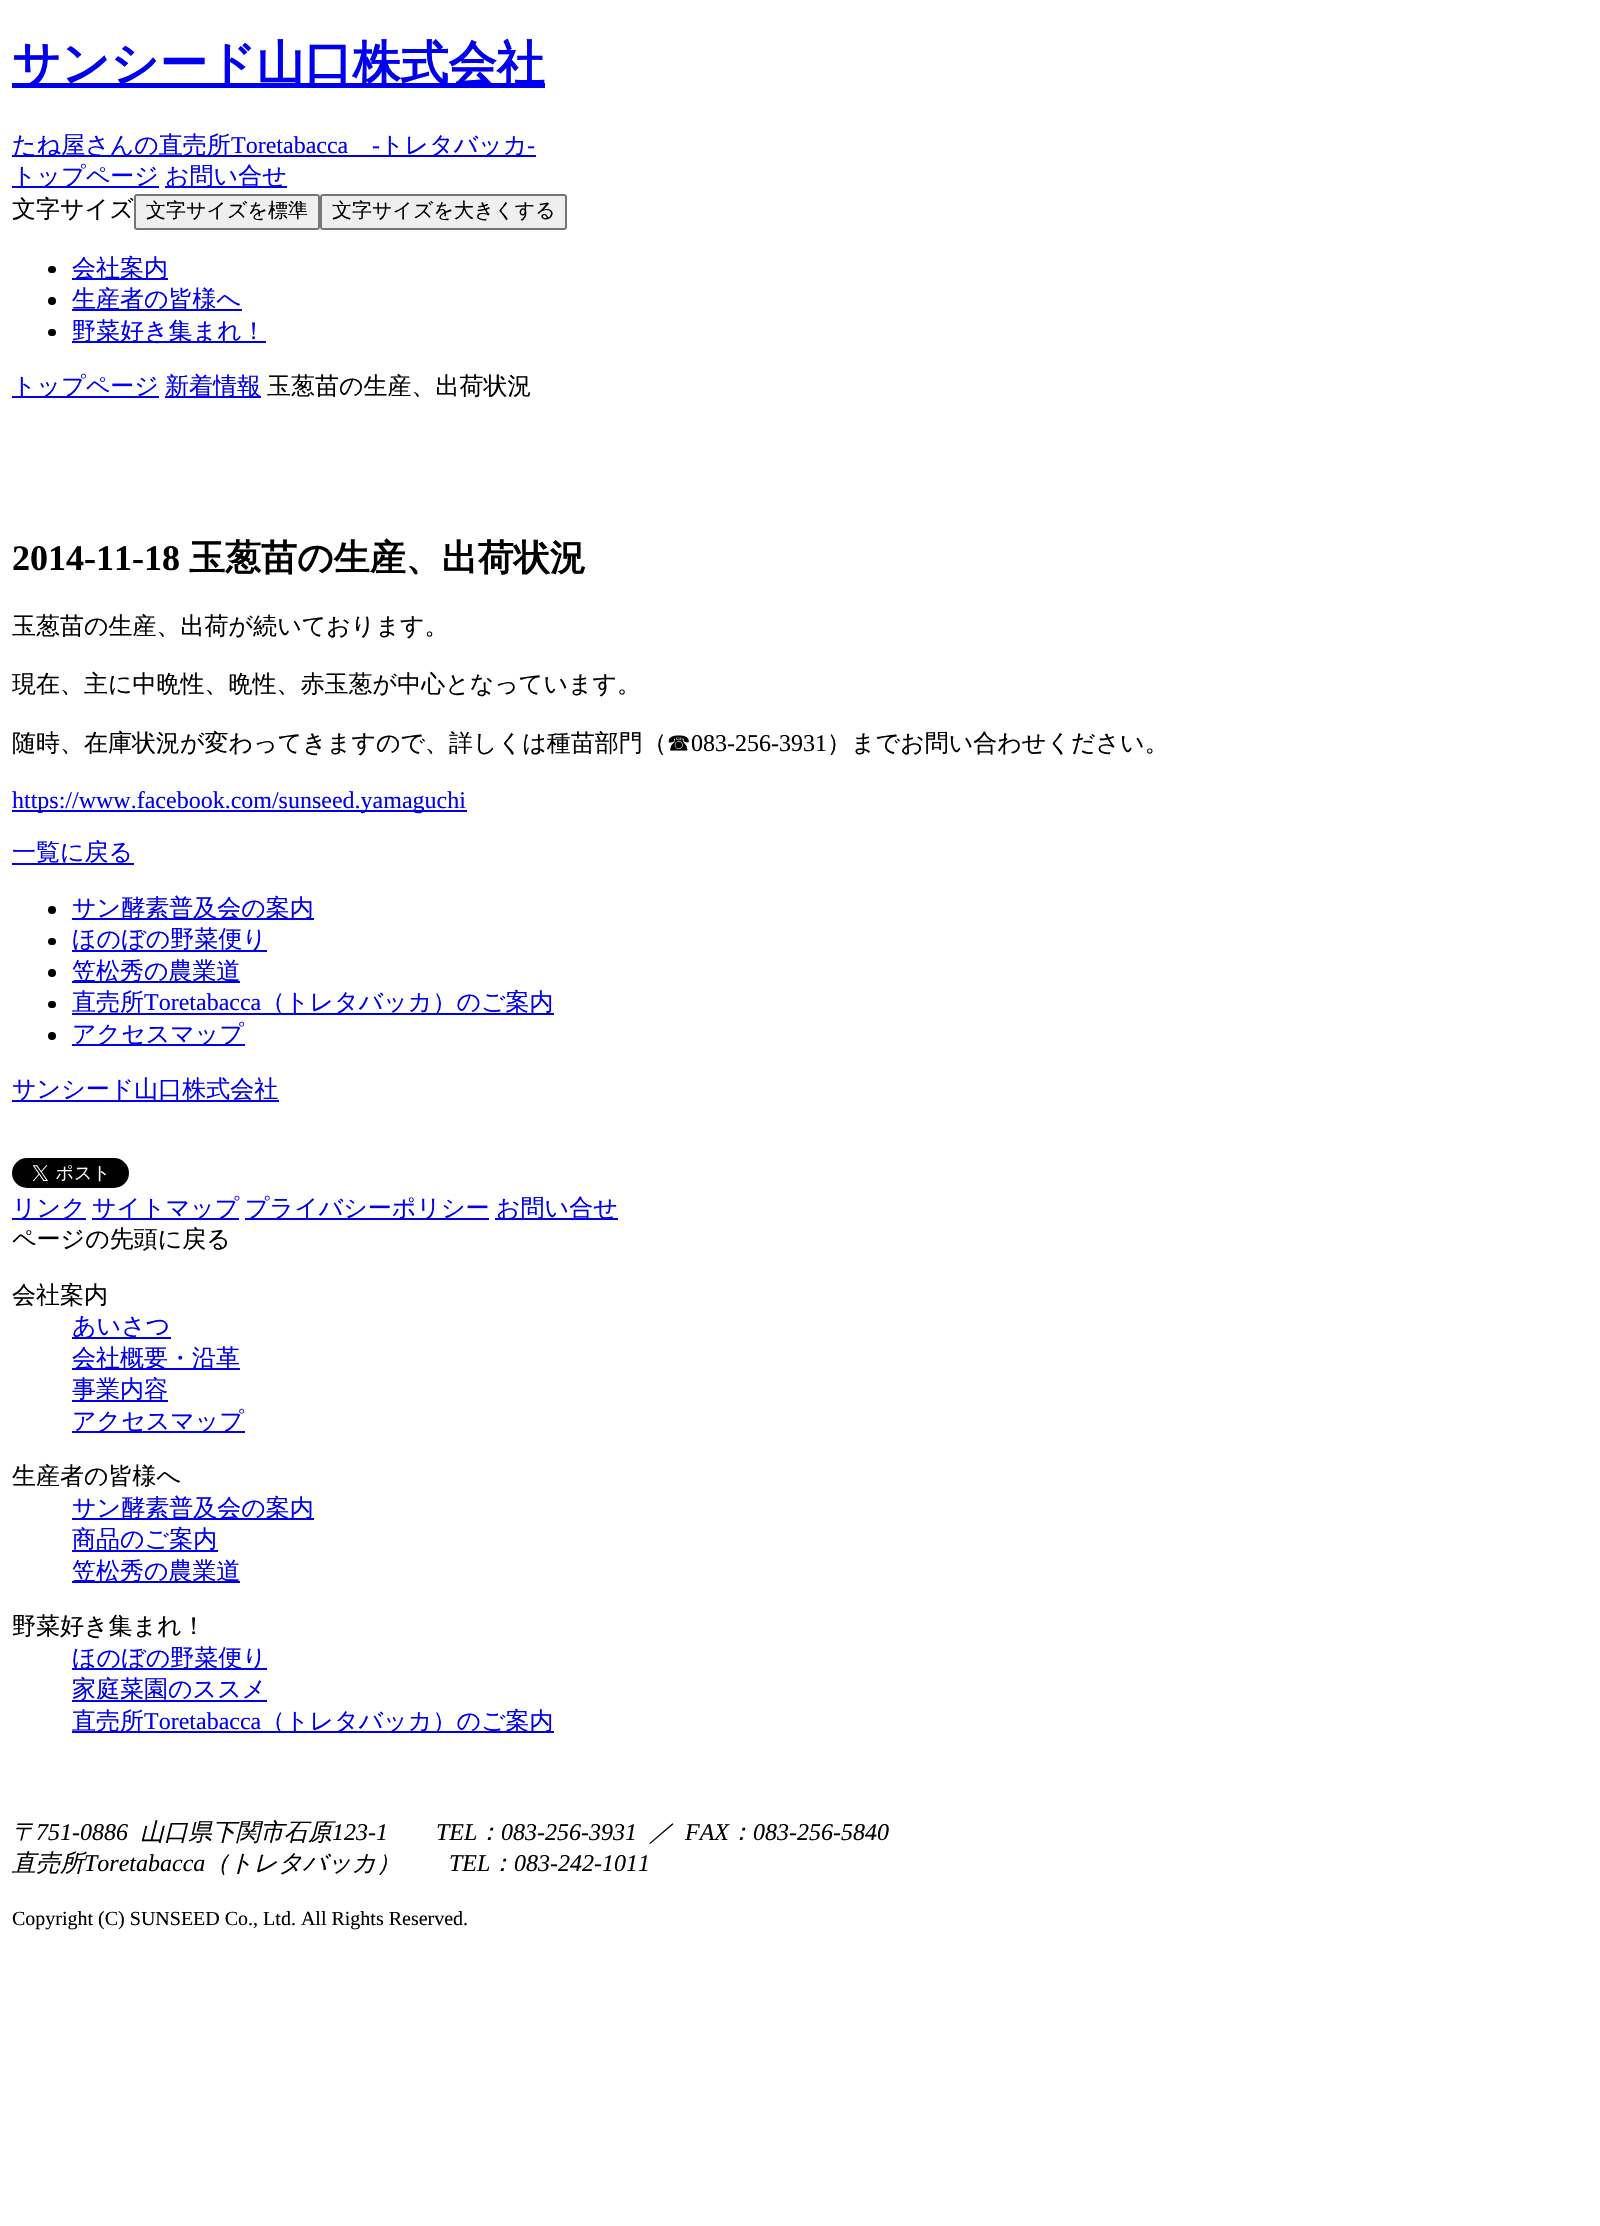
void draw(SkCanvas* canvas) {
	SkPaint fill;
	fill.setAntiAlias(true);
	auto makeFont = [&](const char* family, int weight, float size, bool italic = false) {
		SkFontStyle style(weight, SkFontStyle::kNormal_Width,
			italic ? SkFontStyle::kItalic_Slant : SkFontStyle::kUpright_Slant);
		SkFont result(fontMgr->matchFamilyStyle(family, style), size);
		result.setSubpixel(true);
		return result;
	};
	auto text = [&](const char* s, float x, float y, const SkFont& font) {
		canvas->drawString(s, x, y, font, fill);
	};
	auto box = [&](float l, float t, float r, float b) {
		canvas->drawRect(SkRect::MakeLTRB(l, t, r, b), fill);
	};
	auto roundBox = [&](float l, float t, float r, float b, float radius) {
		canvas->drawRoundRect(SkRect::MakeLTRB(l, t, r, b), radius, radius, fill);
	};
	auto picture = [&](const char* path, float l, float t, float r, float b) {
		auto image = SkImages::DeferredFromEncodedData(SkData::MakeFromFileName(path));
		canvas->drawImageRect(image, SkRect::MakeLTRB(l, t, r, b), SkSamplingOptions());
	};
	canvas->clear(0xFFFFFFFF);
	fill.setColor(0xFF0000EE);
	box(12, 83, 545, 88);
	box(12, 155, 536, 157);
	box(12, 186, 159, 188);
	box(165, 186, 287, 188);
	fill.setColor(0xFFEFEFEF);
	canvas->drawRoundRect(SkRect::MakeLTRB(135, 195, 319, 229), 2, 2, fill);
	fill.setStyle(SkPaint::kStroke_Style);
	fill.setStrokeWidth(2);
	fill.setColor(0xFF767676);
	canvas->drawRoundRect(SkRect::MakeLTRB(135, 195, 319, 229), 2, 2, fill);
	fill.setStyle(SkPaint::kFill_Style);
	fill.setColor(0xFFEFEFEF);
	canvas->drawRoundRect(SkRect::MakeLTRB(321, 195, 566, 229), 2, 2, fill);
	fill.setStyle(SkPaint::kStroke_Style);
	fill.setColor(0xFF767676);
	canvas->drawRoundRect(SkRect::MakeLTRB(321, 195, 566, 229), 2, 2, fill);
	fill.setStyle(SkPaint::kFill_Style);
	fill.setColor(0xFF000000);
	roundBox(48, 266, 56, 273, 3.5f);
	fill.setColor(0xFF0000EE);
	box(72, 278, 168, 280);
	fill.setColor(0xFF000000);
	canvas->drawCircle(52, 301, 4, fill);
	fill.setColor(0xFF0000EE);
	box(72, 309, 242, 311);
	fill.setColor(0xFF000000);
	roundBox(48, 329, 56, 336, 3.5f);
	fill.setColor(0xFF0000EE);
	box(72, 341, 266, 343);
	box(12, 396, 159, 398);
	box(165, 396, 261, 398);
	box(12, 810, 467, 812);
	box(12, 863, 134, 865);
	fill.setColor(0xFF000000);
	canvas->drawCircle(52, 910, 4, fill);
	fill.setColor(0xFF0000EE);
	box(72, 918, 314, 920);
	fill.setColor(0xFF000000);
	roundBox(48, 938, 56, 945, 3.5f);
	fill.setColor(0xFF0000EE);
	box(72, 950, 267, 952);
	fill.setColor(0xFF000000);
	canvas->drawCircle(52, 973, 4, fill);
	fill.setColor(0xFF0000EE);
	box(72, 981, 240, 983);
	fill.setColor(0xFF000000);
	roundBox(48, 1001, 56, 1008, 3.5f);
	fill.setColor(0xFF0000EE);
	box(72, 1013, 554, 1015);
	fill.setColor(0xFF000000);
	canvas->drawCircle(52, 1036, 4, fill);
	fill.setColor(0xFF0000EE);
	box(72, 1044, 245, 1046);
	box(12, 1100, 279, 1102);
	picture("image0.png", 12, 1158, 129, 1188);
	box(12, 1218, 86, 1220);
	box(92, 1218, 239, 1220);
	box(245, 1218, 489, 1220);
	box(495, 1218, 618, 1220);
	box(72, 1337, 171, 1339);
	box(72, 1368, 240, 1370);
	box(72, 1400, 168, 1402);
	box(72, 1431, 245, 1433);
	box(72, 1518, 314, 1520);
	box(72, 1550, 218, 1552);
	box(72, 1581, 240, 1583);
	box(72, 1668, 267, 1670);
	box(72, 1700, 267, 1702);
	box(72, 1731, 554, 1733);
	auto font1 = makeFont("WenQuanYi Zen Hei", 700, 48);
	text("サンシード山口株式会社", 12, 80, font1);
	auto font2 = makeFont("WenQuanYi Zen Hei", 500, 24);
	text("たね屋さんの直売所", 12, 153, font2);
	auto font3 = makeFont("Liberation Serif", 400, 24);
	text("Toretabacca", 231, 153, font3);
	text("-", 372, 153, font3);
	text("トレタバッカ", 380, 153, font2);
	text("-", 527, 153, font3);
	text("トップページ", 12, 184, font2);
	text("お問い合せ", 165, 184, font2);
	fill.setColor(0xFF000000);
	text("文字サイズ", 12, 217, font2);
	auto font4 = makeFont("WenQuanYi Zen Hei", 500, 20);
	text("文字サイズを標準", 146, 217, font4);
	text("文字サイズを大きくする", 332, 217, font4);
	fill.setColor(0xFF0000EE);
	text("会社案内", 72, 276, font2);
	text("生産者の皆様へ", 72, 307, font2);
	text("野菜好き集まれ！", 72, 339, font2);
	text("トップページ", 12, 394, font2);
	text("新着情報", 165, 394, font2);
	fill.setColor(0xFF000000);
	text("玉葱苗の生産、出荷状況", 267, 394, font2);
	auto font5 = makeFont("Liberation Serif", 700, 36);
	text("2014-11-18", 12, 570, font5);
	auto font6 = makeFont("WenQuanYi Zen Hei", 700, 36);
	text("玉葱苗の生産、出荷状況", 189, 570, font6);
	text("玉葱苗の生産、出荷が続いております。", 12, 634, font2);
	text("現在、主に中晩性、晩性、赤玉葱が中心となっています。", 12, 692, font2);
	text("随時、在庫状況が変わってきますので、詳しくは種苗部門（☎", 12, 751, font2);
	text("083-256-3931", 691, 751, font3);
	text("）までお問い合わせください。", 827, 751, font2);
	fill.setColor(0xFF0000EE);
	text("https://www.facebook.com/sunseed.yamaguchi", 12, 808, font3);
	text("一覧に戻る", 12, 860, font2);
	text("サン酵素普及会の案内", 72, 916, font2);
	text("ほのぼの野菜便り", 72, 947, font2);
	text("笠松秀の農業道", 72, 979, font2);
	text("直売所", 72, 1010, font2);
	text("Toretabacca", 144, 1010, font3);
	text("（トレタバッカ）のご案内", 261, 1010, font2);
	text("アクセスマップ", 72, 1042, font2);
	text("サンシード山口株式会社", 12, 1097, font2);
	text("リンク", 12, 1216, font2);
	text("サイトマップ", 92, 1216, font2);
	text("プライバシーポリシー", 245, 1216, font2);
	text("お問い合せ", 496, 1216, font2);
	fill.setColor(0xFF000000);
	text("ページの先頭に戻る", 12, 1247, font2);
	text("会社案内", 12, 1303, font2);
	fill.setColor(0xFF0000EE);
	text("あいさつ", 72, 1334, font2);
	text("会社概要・沿革", 72, 1366, font2);
	text("事業内容", 72, 1397, font2);
	text("アクセスマップ", 72, 1429, font2);
	fill.setColor(0xFF000000);
	text("生産者の皆様へ", 12, 1484, font2);
	fill.setColor(0xFF0000EE);
	text("サン酵素普及会の案内", 72, 1516, font2);
	text("商品のご案内", 72, 1547, font2);
	text("笠松秀の農業道", 72, 1579, font2);
	fill.setColor(0xFF000000);
	text("野菜好き集まれ！", 12, 1634, font2);
	fill.setColor(0xFF0000EE);
	text("ほのぼの野菜便り", 72, 1666, font2);
	text("家庭菜園のススメ", 72, 1697, font2);
	text("直売所", 72, 1729, font2);
	text("Toretabacca", 144, 1729, font3);
	text("（トレタバッカ）のご案内", 261, 1729, font2);
	auto font7 = makeFont("WenQuanYi Zen Hei", 500, 24, true);
	fill.setColor(0xFF000000);
	text("〒", 12, 1840, font7);
	auto font8 = makeFont("Liberation Serif", 400, 24, true);
	text("751-0886", 36, 1840, font8);
	text("山口県下関市石原", 140, 1840, font7);
	text("123-1", 332, 1840, font8);
	text("TEL", 436, 1840, font8);
	text("：", 477, 1840, font7);
	text("083-256-3931", 501, 1840, font8);
	text("／", 649, 1840, font7);
	text("FAX", 685, 1840, font8);
	text("：", 729, 1840, font7);
	text("083-256-5840", 753, 1840, font8);
	text("直売所", 12, 1871, font7);
	text("Toretabacca", 84, 1871, font8);
	text("（トレタバッカ）", 205, 1871, font7);
	text("TEL", 449, 1871, font8);
	text("：", 490, 1871, font7);
	text("083-242-1011", 514, 1871, font8);
	auto font9 = makeFont("Liberation Serif", 400, 20);
	text("Copyright (C) SUNSEED Co., Ltd. All Rights Reserved.", 12, 1925, font9);
}
